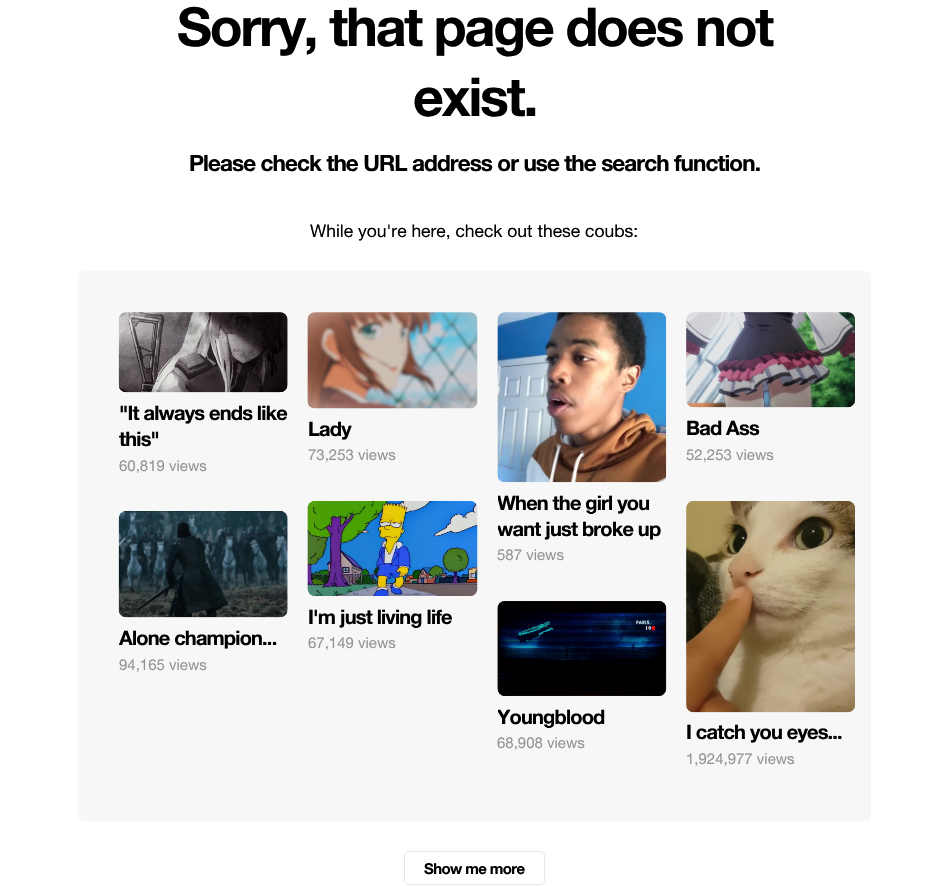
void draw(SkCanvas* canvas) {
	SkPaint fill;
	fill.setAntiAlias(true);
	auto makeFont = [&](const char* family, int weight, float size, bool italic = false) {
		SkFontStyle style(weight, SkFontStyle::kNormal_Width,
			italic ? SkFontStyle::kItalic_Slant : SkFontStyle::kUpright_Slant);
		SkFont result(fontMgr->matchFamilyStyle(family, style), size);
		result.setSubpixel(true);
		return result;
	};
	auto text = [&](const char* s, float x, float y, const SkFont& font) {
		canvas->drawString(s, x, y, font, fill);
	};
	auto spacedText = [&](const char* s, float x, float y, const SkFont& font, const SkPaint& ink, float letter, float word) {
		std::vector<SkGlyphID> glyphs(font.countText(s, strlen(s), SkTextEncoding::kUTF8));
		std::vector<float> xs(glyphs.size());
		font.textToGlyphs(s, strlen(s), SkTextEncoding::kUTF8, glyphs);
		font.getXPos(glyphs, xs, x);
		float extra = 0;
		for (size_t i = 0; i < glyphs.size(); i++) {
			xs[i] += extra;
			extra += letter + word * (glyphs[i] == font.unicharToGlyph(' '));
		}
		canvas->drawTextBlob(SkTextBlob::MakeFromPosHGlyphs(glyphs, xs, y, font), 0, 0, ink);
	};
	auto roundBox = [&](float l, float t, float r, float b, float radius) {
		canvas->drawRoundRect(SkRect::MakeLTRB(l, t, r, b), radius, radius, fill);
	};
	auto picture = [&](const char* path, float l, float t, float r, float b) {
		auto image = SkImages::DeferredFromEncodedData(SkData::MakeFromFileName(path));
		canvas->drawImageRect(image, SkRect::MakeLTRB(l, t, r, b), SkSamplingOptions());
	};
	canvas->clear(0xFFFFFFFF);
	fill.setColor(0xFFF7F7F7);
	roundBox(78, 271, 871, 821, 6);
	picture("image0.png", 118, 312, 288, 393);
	picture("image1.png", 118, 312, 288, 393);
	picture("image2.png", 307, 312, 478, 409);
	picture("image3.png", 307, 312, 477, 408);
	picture("image4.png", 686, 312, 855, 408);
	picture("image5.png", 686, 312, 855, 408);
	picture("image6.png", 497, 312, 667, 483);
	picture("image7.png", 497, 312, 666, 481);
	picture("image8.png", 118, 511, 288, 618);
	picture("image9.png", 118, 511, 288, 618);
	picture("image10.png", 307, 501, 478, 596);
	picture("image11.png", 307, 501, 477, 596);
	picture("image12.png", 497, 601, 667, 696);
	picture("image13.png", 497, 601, 667, 696);
	picture("image14.png", 686, 501, 855, 713);
	picture("image15.png", 686, 501, 855, 713);
	fill.setStyle(SkPaint::kStroke_Style);
	fill.setStrokeWidth(1);
	fill.setColor(0xFFE6E6E6);
	canvas->drawRoundRect(SkRect::MakeLTRB(404.5f, 851.5f, 544.5f, 884.5f), 4.5f, 4.5f, fill);
	fill.setStyle(SkPaint::kFill_Style);
	fill.setColor(0xFFFFFFFF);
	roundBox(405, 853, 544, 884, 4);
	auto font1 = makeFont("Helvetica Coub", 700, 53.75f);
	fill.setColor(0xFF000000);
	spacedText("Sorry, that page does not", 177, 46, font1, fill, -2.15f, 0);
	spacedText("exist.", 413, 116, font1, fill, -2.15f, 0);
	auto font2 = makeFont("Helvetica Coub", 700, 22.5f);
	spacedText("Please check the URL address or use the search function.", 189, 171, font2, fill, -0.9f, 0);
	auto font3 = makeFont("Helvetica Coub", 400, 17.5f);
	text("While you're here, check out these coubs:", 310, 237, font3);
	auto font4 = makeFont("Helvetica Coub", 700, 20);
	spacedText("\"It always ends like", 119, 420, font4, fill, -0.8f, 0);
	spacedText("this\"", 119, 446, font4, fill, -0.8f, 0);
	auto font5 = makeFont("Helvetica Coub", 400, 15);
	fill.setColor(0xFF949494);
	text("60,819 views", 119, 471, font5);
	fill.setColor(0xFF000000);
	spacedText("Lady", 308, 436, font4, fill, -0.8f, 0);
	fill.setColor(0xFF949494);
	text("73,253 views", 308, 460, font5);
	fill.setColor(0xFF000000);
	spacedText("Bad Ass", 686, 435, font4, fill, -0.8f, 0);
	fill.setColor(0xFF949494);
	text("52,253 views", 686, 460, font5);
	canvas->save();
	canvas->clipRect(SkRect::MakeLTRB(498, 491, 666, 543));
	fill.setColor(0xFF000000);
	spacedText("When the girl you", 497, 510, font4, fill, -0.8f, 0);
	spacedText("want just broke up", 497, 536, font4, fill, -0.8f, 0);
	canvas->restore();
	fill.setColor(0xFF949494);
	text("587 views", 497, 560, font5);
	fill.setColor(0xFF000000);
	spacedText("Alone champion...", 119, 645, font4, fill, -0.8f, 0);
	fill.setColor(0xFF949494);
	text("94,165 views", 119, 670, font5);
	fill.setColor(0xFF000000);
	spacedText("I'm just living life", 308, 624, font4, fill, -0.8f, 0);
	fill.setColor(0xFF949494);
	text("67,149 views", 308, 648, font5);
	canvas->save();
	canvas->clipRect(SkRect::MakeLTRB(498, 705, 666, 731));
	fill.setColor(0xFF000000);
	spacedText("Youngblood", 497, 724, font4, fill, -0.8f, 0);
	canvas->restore();
	fill.setColor(0xFF949494);
	text("68,908 views", 497, 748, font5);
	fill.setColor(0xFF000000);
	spacedText("I catch you eyes...", 686, 739, font4, fill, -0.8f, 0);
	fill.setColor(0xFF949494);
	text("1,924,977 views", 686, 764, font5);
	auto font6 = makeFont("Helvetica Coub", 700, 15);
	fill.setColor(0xFF000000);
	spacedText("Show me more", 424, 874, font6, fill, -0.6f, 0);
}
